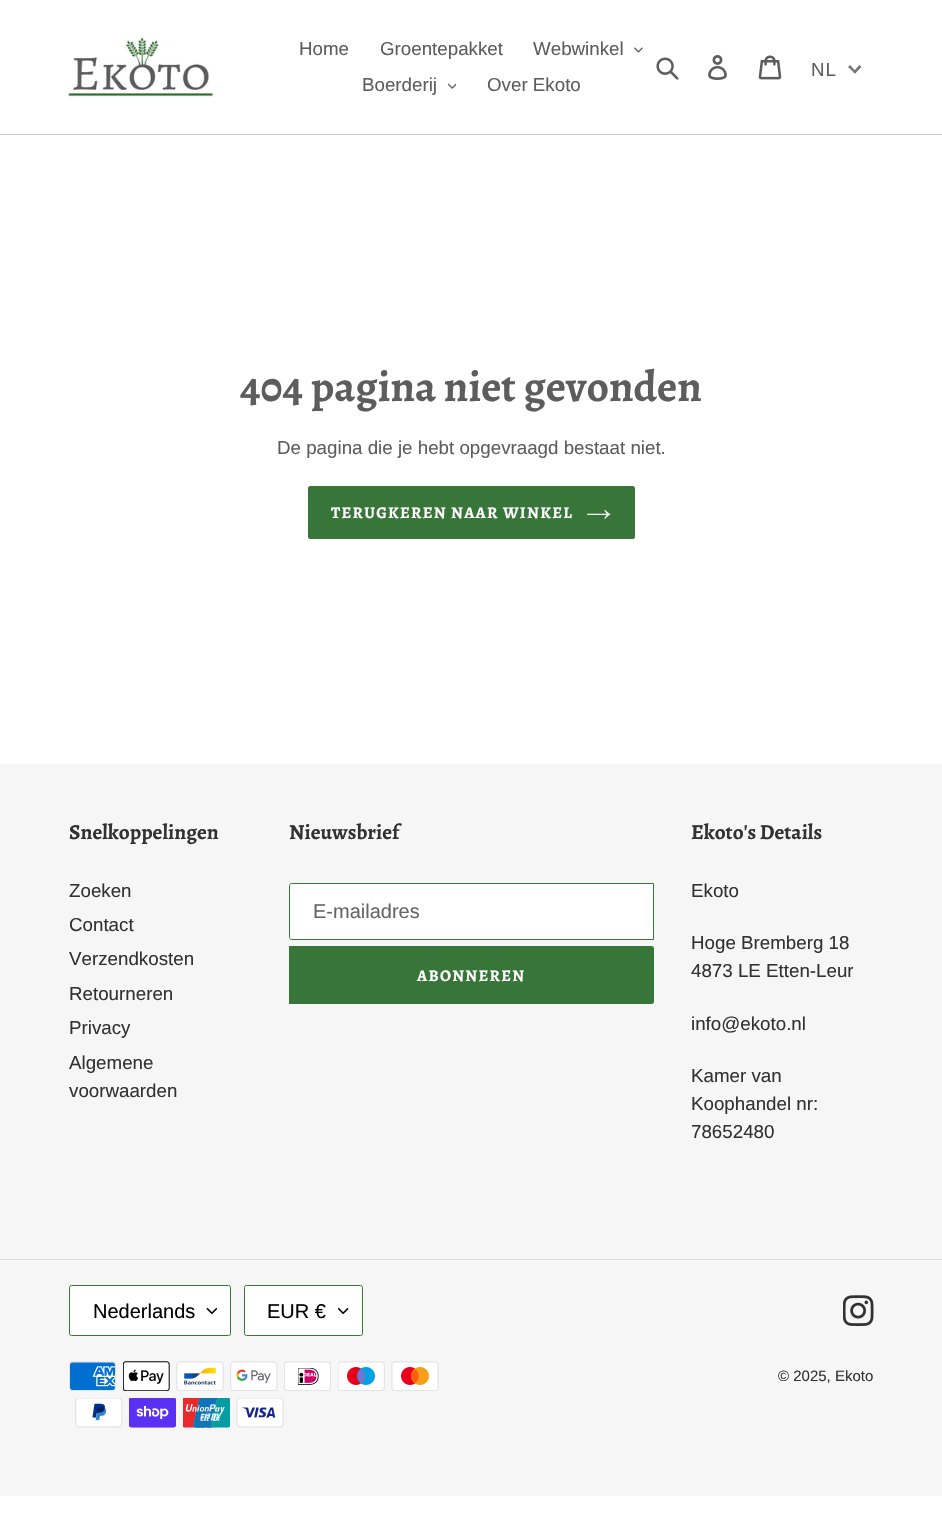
void draw(SkCanvas* canvas) {
	SkPaint fill;
	fill.setAntiAlias(true);
	auto makeFont = [&](const char* family, int weight, float size, bool italic = false) {
		SkFontStyle style(weight, SkFontStyle::kNormal_Width,
			italic ? SkFontStyle::kItalic_Slant : SkFontStyle::kUpright_Slant);
		SkFont result(fontMgr->matchFamilyStyle(family, style), size);
		result.setSubpixel(true);
		return result;
	};
	auto text = [&](const char* s, float x, float y, const SkFont& font) {
		canvas->drawString(s, x, y, font, fill);
	};
	auto spacedText = [&](const char* s, float x, float y, const SkFont& font, const SkPaint& ink, float letter, float word) {
		std::vector<SkGlyphID> glyphs(font.countText(s, strlen(s), SkTextEncoding::kUTF8));
		std::vector<float> xs(glyphs.size());
		font.textToGlyphs(s, strlen(s), SkTextEncoding::kUTF8, glyphs);
		font.getXPos(glyphs, xs, x);
		float extra = 0;
		for (size_t i = 0; i < glyphs.size(); i++) {
			xs[i] += extra;
			extra += letter + word * (glyphs[i] == font.unicharToGlyph(' '));
		}
		canvas->drawTextBlob(SkTextBlob::MakeFromPosHGlyphs(glyphs, xs, y, font), 0, 0, ink);
	};
	auto box = [&](float l, float t, float r, float b) {
		canvas->drawRect(SkRect::MakeLTRB(l, t, r, b), fill);
	};
	auto roundBox = [&](float l, float t, float r, float b, float radius) {
		canvas->drawRoundRect(SkRect::MakeLTRB(l, t, r, b), radius, radius, fill);
	};
	auto picture = [&](const char* path, float l, float t, float r, float b) {
		auto image = SkImages::DeferredFromEncodedData(SkData::MakeFromFileName(path));
		canvas->drawImageRect(image, SkRect::MakeLTRB(l, t, r, b), SkSamplingOptions());
	};
	canvas->clear(0xFFFFFFFF);
	fill.setColor(0xFFCCCCCC);
	box(0, 134, 942, 135);
	picture("image0.png", 68, 37, 213, 97);
	picture("image1.png", 634, 47, 643, 53);
	picture("image2.png", 448, 83, 456, 89);
	picture("image3.png", 656, 57, 679, 80);
	picture("image4.png", 708, 55, 727, 80);
	picture("image5.png", 758, 55, 782, 80);
	fill.setColor(0xFF747474);
	canvas->drawPath(SkPathBuilder().moveTo(859.5f, 65).lineTo(861.5f, 67).lineTo(855, 73.5f).lineTo(853, 72).close().detach(), fill);
	canvas->drawPath(SkPathBuilder().moveTo(850, 65).lineTo(856.5f, 72).lineTo(855, 73.5f).lineTo(848, 67).close().detach(), fill);
	fill.setColor(0xFF387538);
	roundBox(308, 486, 635, 539, 2.5f);
	picture("image6.png", 587, 509, 611, 519);
	fill.setColor(0xFFF6F6F6);
	box(0, 764, 942, 1496);
	fill.setColor(0xFFFFFFFF);
	canvas->drawPath(SkPathBuilder().moveTo(291.5f, 883.5f).lineTo(653.5f, 883.5f).lineTo(653.5f, 939.5f).lineTo(291.5f, 939.5f).cubicTo(290.5f, 939.5f, 289.5f, 938.5f, 289.5f, 937.5f).lineTo(289.5f, 885.5f).cubicTo(289.5f, 884.5f, 290.5f, 883.5f, 291.5f, 883.5f).close().detach(), fill);
	fill.setStyle(SkPaint::kStroke_Style);
	fill.setStrokeWidth(1);
	fill.setColor(0xFF387638);
	canvas->drawPath(SkPathBuilder().moveTo(291.5f, 883.5f).lineTo(653.5f, 883.5f).lineTo(653.5f, 939.5f).lineTo(291.5f, 939.5f).cubicTo(290.5f, 939.5f, 289.5f, 938.5f, 289.5f, 937.5f).lineTo(289.5f, 885.5f).cubicTo(289.5f, 884.5f, 290.5f, 883.5f, 291.5f, 883.5f).close().detach(), fill);
	fill.setStyle(SkPaint::kFill_Style);
	fill.setColor(0xFF387538);
	canvas->drawPath(SkPathBuilder().moveTo(289, 946).lineTo(651.5f, 946).cubicTo(653, 946, 654, 947, 654, 948.5f).lineTo(654, 1001.5f).cubicTo(654, 1003, 653, 1004, 651.5f, 1004).lineTo(289, 1004).close().detach(), fill);
	fill.setColor(0xFFDDDDDD);
	box(0, 1259, 942, 1260);
	fill.setColor(0xFFFFFFFF);
	roundBox(69, 1285, 231, 1336, 2.5f);
	picture("image7.png", 206, 1308, 218, 1314);
	fill.setStyle(SkPaint::kStroke_Style);
	fill.setColor(0xFF387638);
	canvas->drawRoundRect(SkRect::MakeLTRB(69.5f, 1285.5f, 230.5f, 1335.5f), 2, 2, fill);
	fill.setStyle(SkPaint::kFill_Style);
	fill.setColor(0xFFFFFFFF);
	roundBox(244, 1285, 363, 1336, 2.5f);
	picture("image8.png", 338, 1308, 349, 1314);
	fill.setStyle(SkPaint::kStroke_Style);
	fill.setColor(0xFF387638);
	canvas->drawRoundRect(SkRect::MakeLTRB(244.5f, 1285.5f, 362.5f, 1335.5f), 2, 2, fill);
	picture("image9.png", 843, 1295, 874, 1326);
	picture("image10.png", 69, 1361, 116, 1391);
	picture("image11.png", 123, 1361, 170, 1391);
	picture("image12.png", 176, 1361, 224, 1391);
	picture("image13.png", 230, 1361, 278, 1391);
	picture("image14.png", 284, 1361, 331, 1391);
	picture("image15.png", 338, 1361, 385, 1391);
	picture("image16.png", 391, 1361, 439, 1391);
	picture("image17.png", 75, 1398, 123, 1428);
	picture("image18.png", 129, 1398, 176, 1428);
	picture("image19.png", 183, 1398, 230, 1428);
	picture("image20.png", 236, 1398, 284, 1428);
	auto font1 = makeFont("Liberation Sans", 400, 18.75f);
	fill.setStyle(SkPaint::kFill_Style);
	fill.setColor(0xFF5D5D5D);
	text("Home", 299, 55, font1);
	text("Groentepakket", 380, 55, font1);
	text("Webwinkel", 533, 55, font1);
	text("Boerderij", 362, 91, font1);
	text("Over Ekoto", 487, 91, font1);
	spacedText("NL", 811, 76, font1, fill, 1, 0);
	auto font2 = makeFont("Alegreya", 700, 43.75f);
	text("404 pagina niet gevonden", 240, 401, font2);
	text("De pagina die je hebt opgevraagd bestaat niet.", 277, 454, font1);
	auto font3 = makeFont("Alegreya", 700, 16.25f);
	fill.setColor(0xFFFFFFFF);
	spacedText("TERUGKEREN NAAR WINKEL", 331, 518, font3, fill, 1.3f, 0);
	auto font4 = makeFont("Alegreya", 700, 21.25f);
	fill.setColor(0xFF333232);
	text("Snelkoppelingen", 69, 839, font4);
	text("Zoeken", 69, 897, font1);
	text("Contact", 69, 931, font1);
	text("Verzendkosten", 69, 965, font1);
	text("Retourneren", 69, 1000, font1);
	text("Privacy", 69, 1034, font1);
	text("Algemene", 69, 1069, font1);
	text("voorwaarden", 69, 1097, font1);
	text("Nieuwsbrief", 289, 839, font4);
	auto font5 = makeFont("Liberation Sans", 400, 20);
	fill.setColor(0xFF666666);
	text("E-mailadres", 313, 918, font5);
	fill.setColor(0xFFFFFFFF);
	spacedText("ABONNEREN", 417, 981, font3, fill, 1.3f, 0);
	fill.setColor(0xFF333232);
	text("Ekoto's Details", 691, 839, font4);
	text("Ekoto", 691, 897, font1);
	text("Hoge Bremberg 18", 691, 949, font1);
	text("4873 LE Etten-Leur", 691, 977, font1);
	text("info@ekoto.nl", 691, 1030, font1);
	text("Kamer van", 691, 1082, font1);
	text("Koophandel nr:", 691, 1110, font1);
	text("78652480", 691, 1138, font1);
	fill.setColor(0xFF000000);
	text("Nederlands", 93, 1318, font5);
	text("EUR €", 267, 1318, font5);
	auto font6 = makeFont("Liberation Sans", 400, 15);
	fill.setColor(0xFF333232);
	text("© 2025, Ekoto", 778, 1381, font6);
}
